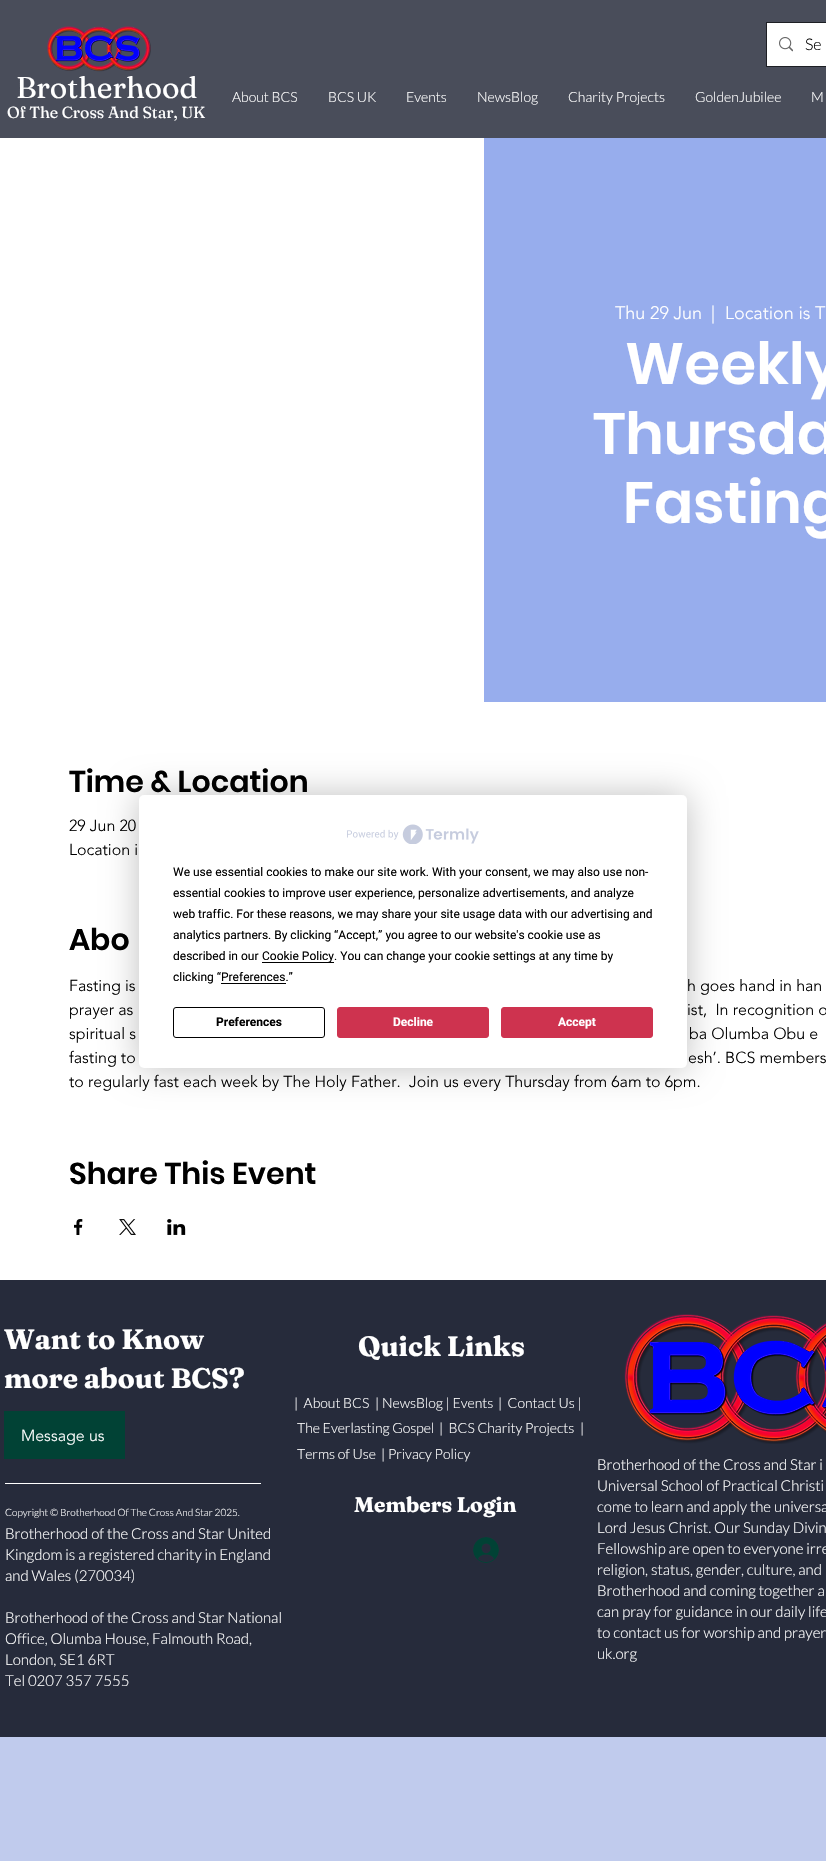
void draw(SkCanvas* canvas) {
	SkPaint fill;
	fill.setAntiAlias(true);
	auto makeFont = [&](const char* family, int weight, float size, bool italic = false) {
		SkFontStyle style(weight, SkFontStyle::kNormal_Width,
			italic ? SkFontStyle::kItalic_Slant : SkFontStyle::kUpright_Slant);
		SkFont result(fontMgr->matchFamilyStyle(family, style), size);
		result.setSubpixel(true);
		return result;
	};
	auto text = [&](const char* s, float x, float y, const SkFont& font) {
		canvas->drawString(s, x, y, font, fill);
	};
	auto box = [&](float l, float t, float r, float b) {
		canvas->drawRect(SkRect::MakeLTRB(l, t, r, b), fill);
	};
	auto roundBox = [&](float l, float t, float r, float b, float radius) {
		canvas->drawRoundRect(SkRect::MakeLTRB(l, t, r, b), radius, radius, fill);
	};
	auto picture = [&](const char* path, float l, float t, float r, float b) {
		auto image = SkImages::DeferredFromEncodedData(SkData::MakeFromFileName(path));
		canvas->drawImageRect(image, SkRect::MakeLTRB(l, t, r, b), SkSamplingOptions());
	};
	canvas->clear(0xFFC0CBED);
	fill.setColor(0xFF494D5A);
	box(0, 0, 826, 138);
	fill.setStyle(SkPaint::kStroke_Style);
	fill.setStrokeWidth(1);
	fill.setColor(0xFF1D1F24);
	canvas->drawRect(SkRect::MakeLTRB(766.5f, 22.5f, 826.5f, 66.5f), fill);
	fill.setStyle(SkPaint::kFill_Style);
	fill.setColor(0xFFFFFFFF);
	box(767, 23, 826, 66);
	picture("image0.png", 779, 37, 793, 52);
	picture("image1.png", 47, 26, 151, 72);
	box(0, 138, 826, 1280);
	fill.setColor(0xFF97ADED);
	box(484, 138, 826, 702);
	picture("image2.png", 74, 1219, 83, 1235);
	picture("image3.png", 119, 1219, 136, 1235);
	picture("image4.png", 167, 1219, 186, 1235);
	fill.setColor(0xFF262B3B);
	box(0, 1280, 826, 1737);
	fill.setColor(0xFF014235);
	box(4, 1411, 125, 1459);
	fill.setColor(0xFFFFFFFF);
	box(5, 1483, 261, 1484);
	picture("image5.png", 473, 1537, 499, 1563);
	picture("image6.png", 624, 1314, 826, 1444);
	fill.setColor(0x40000000);
	fill.setMaskFilter(SkMaskFilter::MakeBlur(kNormal_SkBlurStyle, 17.5f));
	canvas->drawRoundRect(SkRect::MakeLTRB(139, 795, 687, 1068), 5, 5, fill);
	fill.setMaskFilter(nullptr);
	fill.setColor(0xFFFFFFFF);
	roundBox(139, 795, 687, 1068, 5);
	picture("image7.png", 347, 824, 479, 844);
	fill.setColor(0xFF000000);
	box(262, 962, 334, 963);
	box(221, 983, 286, 984);
	fill.setStyle(SkPaint::kStroke_Style);
	canvas->drawRoundRect(SkRect::MakeLTRB(173.5f, 1007.5f, 324.5f, 1037.5f), 2.5f, 2.5f, fill);
	fill.setStyle(SkPaint::kFill_Style);
	fill.setColor(0xFFCE334F);
	canvas->drawRoundRect(SkRect::MakeLTRB(337.5f, 1007.5f, 488.5f, 1037.5f), 2.5f, 2.5f, fill);
	fill.setStyle(SkPaint::kStroke_Style);
	canvas->drawRoundRect(SkRect::MakeLTRB(337.5f, 1007.5f, 488.5f, 1037.5f), 2.5f, 2.5f, fill);
	fill.setStyle(SkPaint::kFill_Style);
	canvas->drawRoundRect(SkRect::MakeLTRB(501.5f, 1007.5f, 652.5f, 1037.5f), 2.5f, 2.5f, fill);
	fill.setStyle(SkPaint::kStroke_Style);
	canvas->drawRoundRect(SkRect::MakeLTRB(501.5f, 1007.5f, 652.5f, 1037.5f), 2.5f, 2.5f, fill);
	auto font1 = makeFont("Lato", 300, 16);
	fill.setStyle(SkPaint::kFill_Style);
	fill.setColor(0xFF000000);
	text("Se", 805, 50, font1);
	auto font2 = makeFont("Fraunces", 400, 30);
	fill.setColor(0xFFFFFFFF);
	text("Brotherhood", 16, 98, font2);
	auto font3 = makeFont("Fraunces", 400, 16);
	text("Of The Cross And Star, UK", 7, 118, font3);
	auto font4 = makeFont("Lato", 300, 14);
	text("About BCS", 232, 102, font4);
	text("BCS UK", 328, 102, font4);
	text("Events", 406, 102, font4);
	text("NewsBlog", 477, 102, font4);
	text("Charity Projects", 568, 102, font4);
	text("GoldenJubilee", 695, 102, font4);
	text("M", 811, 102, font4);
	auto font5 = makeFont("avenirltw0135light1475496", 300, 18);
	text("Thu 29 Jun", 615, 319, font5);
	text("|", 711, 319, font5);
	text("Location is T", 725, 319, font5);
	auto font6 = makeFont("Poppins", 600, 58);
	text("Weekly", 625, 384, font6);
	text("Thursda", 593, 454, font6);
	text("Fasting", 623, 523, font6);
	auto font7 = makeFont("Poppins", 600, 30);
	fill.setColor(0xFF000000);
	text("Time & Location", 69, 792, font7);
	auto font8 = makeFont("avenirltw0135light1475496", 300, 16);
	text("29 Jun 20", 69, 831, font8);
	text("Location i", 69, 855, font8);
	text("Abo", 69, 950, font7);
	text("Fasting is", 69, 991, font8);
	text("h goes hand in han", 687, 991, font8);
	text("prayer as", 69, 1015, font8);
	text("ist,  In recognition o", 687, 1015, font8);
	text("spiritual s", 69, 1039, font8);
	text("ba Olumba Obu e", 689, 1039, font8);
	text("fasting to", 69, 1063, font8);
	text("esh’. BCS members", 688, 1063, font8);
	text("to regularly fast each week by The Holy Father.  Join us every Thursday from 6am to 6pm.", 69, 1087, font8);
	text("Share This Event", 69, 1184, font7);
	auto font9 = makeFont("Fraunces", 700, 28);
	fill.setColor(0xFFFFFFFF);
	text("Want to Know", 4, 1349, font9);
	text("more about BCS?", 4, 1388, font9);
	text("Message us", 21, 1441, font8);
	auto font10 = makeFont("Lato", 300, 10);
	text("Copyright © Brotherhood Of The Cross And Star 2025.", 5, 1516, font10);
	auto font11 = makeFont("Lato", 300, 15);
	text("Brotherhood of the Cross and Star United", 5, 1539, font11);
	text("Kingdom is a registered charity in England", 5, 1560, font11);
	text("and Wales (270034)", 5, 1581, font11);
	text("Brotherhood of the Cross and Star National", 5, 1623, font11);
	text("Office, Olumba House, Falmouth Road,", 5, 1644, font11);
	text("London, SE1 6RT", 5, 1665, font11);
	text("Tel 0207 357 7555", 5, 1686, font11);
	text("Quick Links", 358, 1356, font9);
	text("|  About BCS", 294, 1408, font4);
	text("| NewsBlog | Events", 375, 1408, font4);
	text("|  Contact Us |", 498, 1408, font4);
	text("The Everlasting Gospel", 297, 1433, font4);
	text("|  BCS Charity Projects", 439, 1433, font4);
	text("|", 580, 1433, font4);
	text("Terms of Use", 297, 1459, font4);
	text("| Privacy Policy", 381, 1459, font4);
	auto font12 = makeFont("Fraunces", 700, 21);
	text("Members Login", 354, 1512, font12);
	text("Brotherhood of the Cross and Star i", 597, 1470, font11);
	text("Universal School of Practical Christi", 597, 1491, font11);
	text("come to learn and apply the universa", 597, 1512, font11);
	text("Lord Jesus Christ. Our Sunday Divin", 597, 1533, font11);
	text("Fellowship are open to everyone irre", 597, 1554, font11);
	text("religion, status, gender, culture, and", 597, 1575, font11);
	text("Brotherhood and coming together a", 597, 1596, font11);
	text("can pray for guidance in our daily life", 597, 1617, font11);
	text("to contact us for worship and prayer", 597, 1638, font11);
	text("uk.org", 597, 1659, font11);
	auto font13 = makeFont("Roboto", 400, 12);
	fill.setColor(0xFF000000);
	text("We use essential cookies to make our site work. With your consent, we may also use non-", 173, 876, font13);
	text("essential cookies to improve user experience, personalize advertisements, and analyze", 173, 897, font13);
	text("web traffic. For these reasons, we may share your site usage data with our advertising and", 173, 918, font13);
	text("analytics partners. By clicking “Accept,” you agree to our website's cookie use as", 173, 939, font13);
	text("described in our", 173, 960, font13);
	text("Cookie Policy. You can change your cookie settings at any time by", 262, 960, font13);
	text("clicking “Preferences.”", 173, 981, font13);
	auto font14 = makeFont("Roboto", 700, 12);
	text("Preferences", 216, 1026, font14);
	fill.setColor(0xFFFFFFFF);
	text("Decline", 393, 1026, font14);
	text("Accept", 558, 1026, font14);
}
